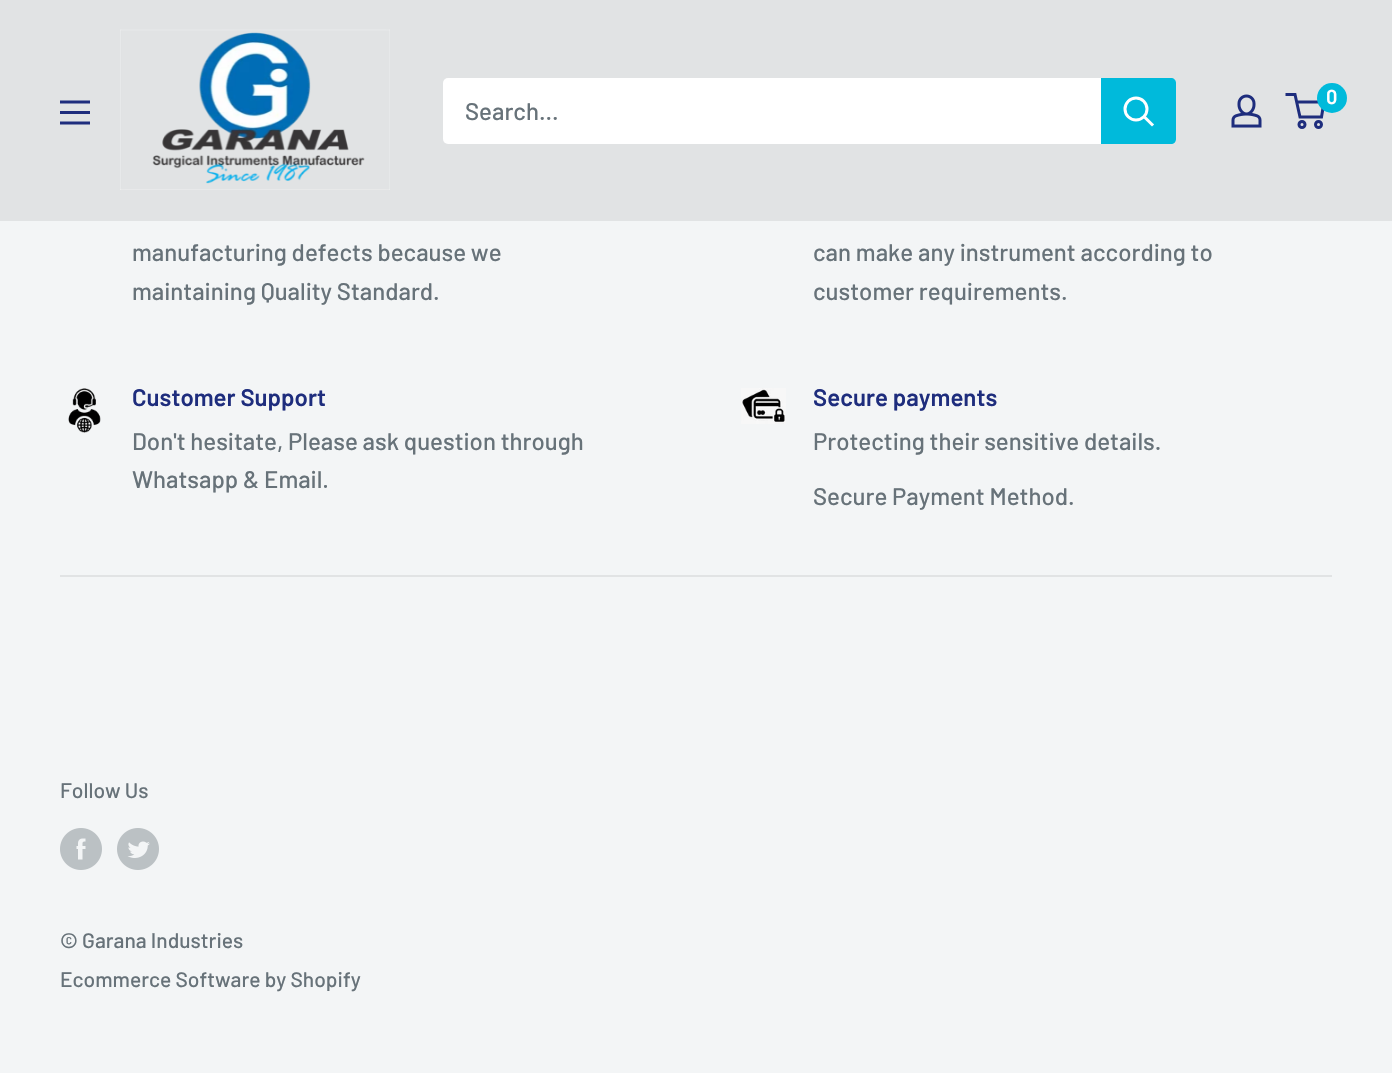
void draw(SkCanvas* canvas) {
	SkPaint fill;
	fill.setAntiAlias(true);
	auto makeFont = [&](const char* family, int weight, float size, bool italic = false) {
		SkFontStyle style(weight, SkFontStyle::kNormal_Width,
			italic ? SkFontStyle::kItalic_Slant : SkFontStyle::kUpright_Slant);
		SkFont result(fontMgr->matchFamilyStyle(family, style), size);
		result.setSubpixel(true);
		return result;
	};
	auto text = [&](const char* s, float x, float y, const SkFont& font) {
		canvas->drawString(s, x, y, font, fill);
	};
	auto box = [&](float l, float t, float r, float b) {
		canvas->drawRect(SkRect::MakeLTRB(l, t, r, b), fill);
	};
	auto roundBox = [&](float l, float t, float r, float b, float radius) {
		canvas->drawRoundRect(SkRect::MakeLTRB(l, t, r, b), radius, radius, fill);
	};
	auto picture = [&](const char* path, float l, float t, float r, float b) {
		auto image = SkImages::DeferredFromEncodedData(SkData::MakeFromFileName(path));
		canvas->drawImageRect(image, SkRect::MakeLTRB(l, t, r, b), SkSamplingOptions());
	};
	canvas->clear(0xFFF3F5F6);
	fill.setColor(0xFFE1E3E4);
	box(0, 0, 1392, 221);
	picture("image0.png", 120, 29, 390, 190);
	picture("image1.png", 1231, 94, 1262, 128);
	fill.setStyle(SkPaint::kStroke_Style);
	fill.setStrokeWidth(3);
	fill.setColor(0xFF1E2D7D);
	canvas->drawCircle(1302, 124.5f, 3, fill);
	canvas->drawCircle(1318.5f, 124.5f, 3, fill);
	canvas->drawPath(SkPathBuilder().moveTo(1296.5f, 102).lineTo(1324, 102).lineTo(1321.5f, 117).lineTo(1300, 117).lineTo(1295, 94.5f).lineTo(1285.5f, 94.5f).detach(), fill);
	fill.setStyle(SkPaint::kFill_Style);
	fill.setColor(0xFF00BADB);
	canvas->drawCircle(1332, 98, 15, fill);
	picture("image2.png", 60, 100, 90, 125);
	fill.setColor(0xFFFFFFFF);
	roundBox(443, 78, 1176, 144, 5);
	fill.setColor(0xFF00BADB);
	canvas->drawPath(SkPathBuilder().moveTo(1101, 78).lineTo(1171, 78).cubicTo(1174, 78, 1176, 80, 1176, 83).lineTo(1176, 139).cubicTo(1176, 142, 1174, 144, 1171, 144).lineTo(1101, 144).close().detach(), fill);
	fill.setStyle(SkPaint::kStroke_Style);
	fill.setStrokeCap(SkPaint::kSquare_Cap);
	fill.setColor(0xFFFFFFFF);
	canvas->drawPath(SkPathBuilder().moveTo(1152, 124.5f).lineTo(1144.5f, 117).detach(), fill);
	fill.setStrokeCap(SkPaint::kButt_Cap);
	canvas->drawCircle(1136, 109, 11, fill);
	picture("image3.png", 68, 388, 101, 433);
	picture("image4.png", 741, 388, 786, 424);
	fill.setStyle(SkPaint::kFill_Style);
	fill.setColor(0xFFE1E3E4);
	box(60, 575, 1332, 577);
	picture("image5.png", 60, 828, 102, 870);
	picture("image6.png", 117, 828, 159, 870);
	auto font1 = makeFont("Barlow", 600, 20);
	fill.setColor(0xFFFFFFFF);
	text("0", 1326, 104, font1);
	auto font2 = makeFont("Barlow", 500, 24);
	fill.setColor(0xFF677279);
	text("Search...", 465, 120, font2);
	text("manufacturing defects because we", 132, 261, font2);
	text("maintaining Quality Standard.", 132, 300, font2);
	text("can make any instrument according to", 813, 261, font2);
	text("customer requirements.", 813, 300, font2);
	auto font3 = makeFont("Barlow", 600, 24);
	fill.setColor(0xFF1E2D7D);
	text("Customer Support", 132, 406, font3);
	fill.setColor(0xFF677279);
	text("Don't hesitate, Please ask question through", 132, 450, font2);
	text("Whatsapp & Email.", 132, 488, font2);
	fill.setColor(0xFF1E2D7D);
	text("Secure payments", 813, 406, font3);
	fill.setColor(0xFF677279);
	text("Protecting their sensitive details.", 813, 450, font2);
	text("Secure Payment Method.", 813, 505, font2);
	auto font4 = makeFont("Barlow", 500, 21);
	text("Follow Us", 60, 798, font4);
	text("© Garana Industries", 60, 948, font4);
	text("Ecommerce Software by Shopify", 60, 987, font4);
}
